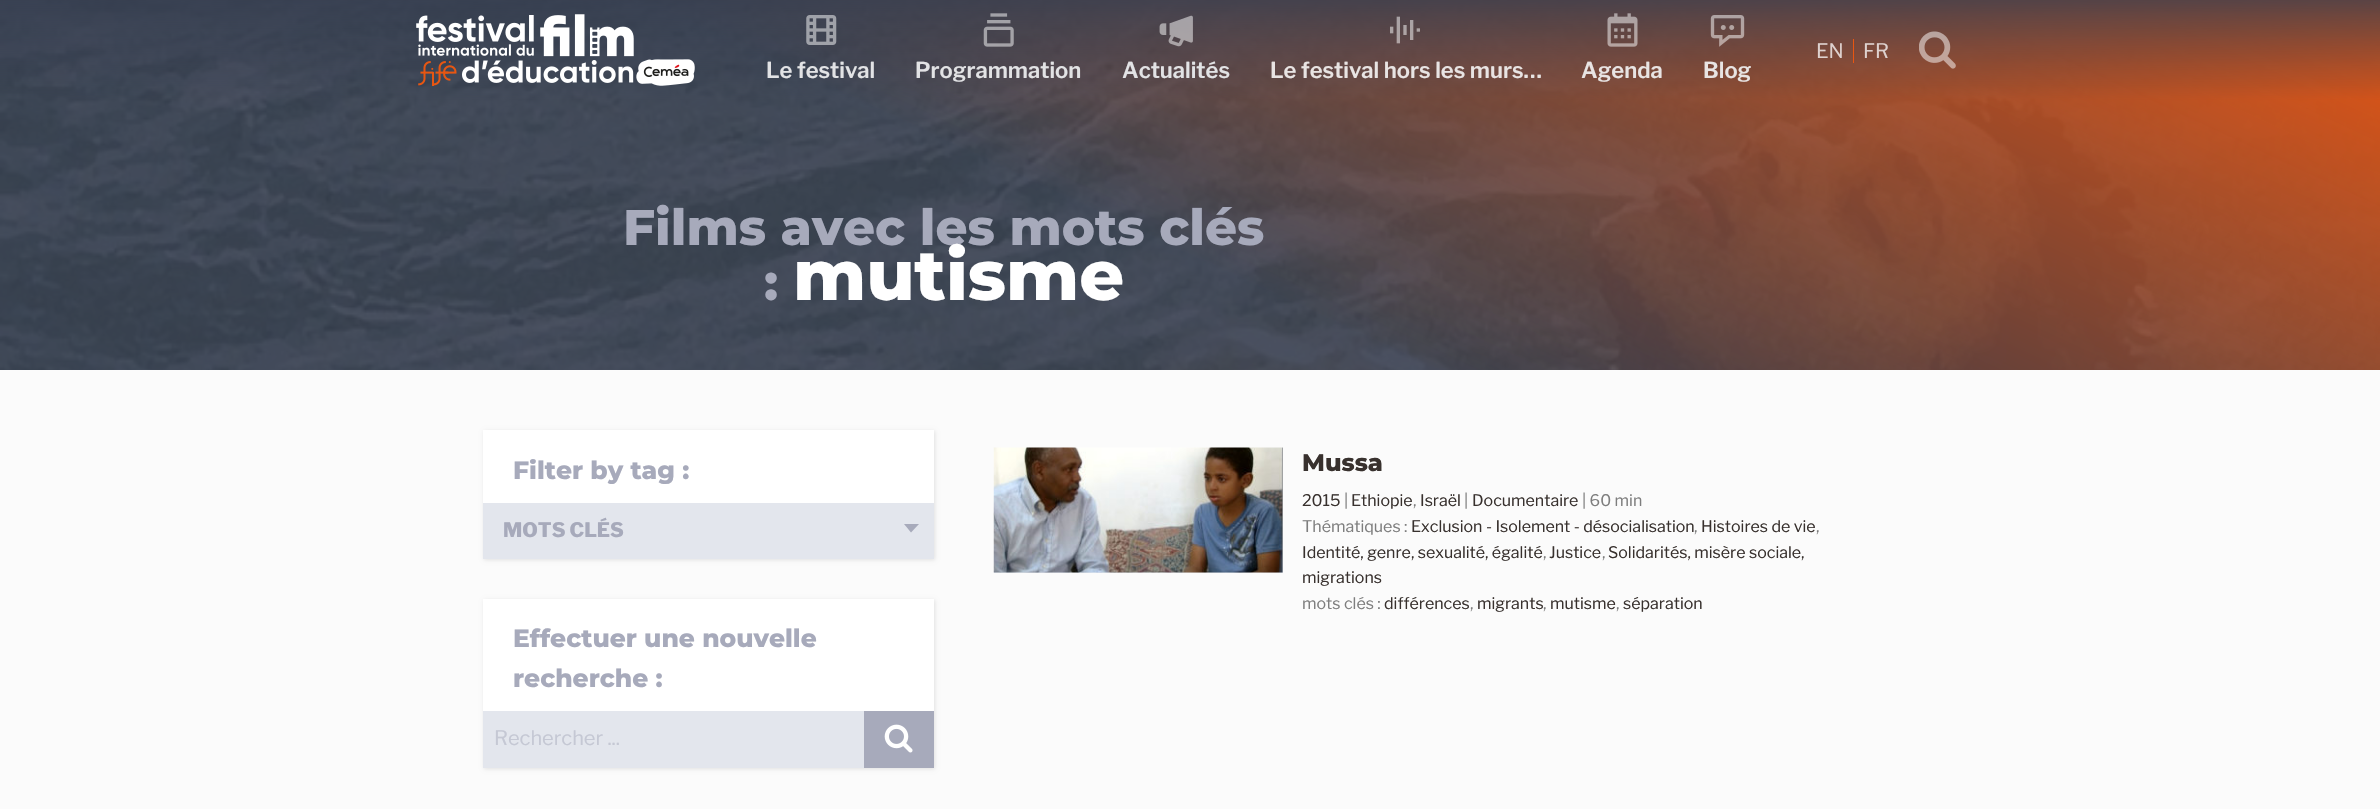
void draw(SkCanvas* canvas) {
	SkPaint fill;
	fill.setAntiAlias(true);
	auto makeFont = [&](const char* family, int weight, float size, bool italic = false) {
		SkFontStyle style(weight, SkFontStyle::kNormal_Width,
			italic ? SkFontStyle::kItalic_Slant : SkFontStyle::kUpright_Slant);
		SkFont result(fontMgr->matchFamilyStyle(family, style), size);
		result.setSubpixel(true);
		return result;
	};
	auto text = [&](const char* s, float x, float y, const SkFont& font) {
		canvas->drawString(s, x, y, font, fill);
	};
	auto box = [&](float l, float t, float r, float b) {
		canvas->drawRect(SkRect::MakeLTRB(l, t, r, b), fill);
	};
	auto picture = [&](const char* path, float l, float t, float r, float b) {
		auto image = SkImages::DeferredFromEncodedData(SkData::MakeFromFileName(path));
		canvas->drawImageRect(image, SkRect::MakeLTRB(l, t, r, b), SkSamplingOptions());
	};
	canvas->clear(0xFFFBFBFB);
	picture("image8.png", 0, 0, 2380, 370);
	picture("image0.png", 416, 14, 695, 86);
	fill.setColor(0xFFE85611);
	box(1853, 39, 1854, 63);
	picture("image1.png", 1919, 31, 1956, 69);
	picture("image2.png", 806, 15, 837, 45);
	picture("image3.png", 983, 13, 1014, 47);
	picture("image4.png", 1159, 15, 1193, 47);
	picture("image5.png", 1390, 16, 1420, 44);
	picture("image6.png", 1607, 13, 1638, 47);
	picture("image7.png", 1710, 15, 1745, 47);
	fill.setColor(0x1A000000);
	fill.setMaskFilter(SkMaskFilter::MakeBlur(kNormal_SkBlurStyle, 2));
	canvas->drawRect(SkRect::MakeLTRB(484, 431, 935, 560), fill);
	fill.setMaskFilter(nullptr);
	fill.setColor(0xFFFFFFFF);
	box(483, 430, 934, 503);
	fill.setColor(0xFFE3E6ED);
	box(483, 503, 934, 559);
	fill.setColor(0xFFA7AABB);
	canvas->drawPath(SkPathBuilder().moveTo(904, 524).lineTo(919, 524).lineTo(911, 532.5f).close().detach(), fill);
	fill.setColor(0x1A000000);
	fill.setMaskFilter(SkMaskFilter::MakeBlur(kNormal_SkBlurStyle, 2));
	canvas->drawRect(SkRect::MakeLTRB(484, 600, 935, 769), fill);
	fill.setMaskFilter(nullptr);
	fill.setColor(0xFFFFFFFF);
	box(483, 599, 934, 711);
	fill.setColor(0xFFE3E6ED);
	box(483, 711, 864, 768);
	fill.setColor(0xFFA7AABB);
	box(864, 711, 934, 768);
	picture("image9.png", 884, 724, 913, 753);
	fill.setColor(0xFFE3E6ED);
	box(994, 448, 1283, 573);
	picture("image10.png", 993, 447, 1283, 573);
	auto font1 = makeFont("Libre Franklin", 400, 20);
	fill.setColor(0xFFDED1CE);
	text("EN", 1816, 58, font1);
	text("FR", 1863, 58, font1);
	auto font2 = makeFont("Libre Franklin", 600, 22);
	fill.setColor(0xFFE2E3E5);
	text("Le festival", 766, 78, font2);
	text("Programmation", 915, 78, font2);
	text("Actualités", 1122, 78, font2);
	fill.setColor(0xFFE8E4E3);
	text("Le festival hors les murs…", 1270, 78, font2);
	text("Agenda", 1581, 78, font2);
	text("Blog", 1703, 78, font2);
	auto font3 = makeFont("Montserrat", 800, 50);
	fill.setColor(0xFFA7AABB);
	text("Films avec les mots clés", 623, 245, font3);
	text(":", 764, 300, font3);
	auto font4 = makeFont("Montserrat", 800, 70);
	fill.setColor(0xFFFFFFFF);
	text("mutisme", 793, 300, font4);
	auto font5 = makeFont("Montserrat", 800, 25);
	fill.setColor(0xFFA7AABB);
	text("Filter by tag :", 513, 479, font5);
	auto font6 = makeFont("Libre Franklin", 800, 20);
	text("MOTS CLÉS", 503, 537, font6);
	text("Effectuer une nouvelle", 513, 647, font5);
	text("recherche :", 513, 687, font5);
	fill.setColor(0xFFC5C8D4);
	text("Rechercher ...", 494, 745, font1);
	auto font7 = makeFont("Montserrat", 800, 24);
	fill.setColor(0xFF38312E);
	text("Mussa", 1302, 471, font7);
	auto font8 = makeFont("Libre Franklin", 400, 16);
	text("2015", 1302, 506, font8);
	fill.setColor(0xFF7E7E7E);
	text("|", 1344, 506, font8);
	fill.setColor(0xFF38312E);
	text("Ethiopie", 1351, 506, font8);
	fill.setColor(0xFF7E7E7E);
	text(",", 1413, 506, font8);
	fill.setColor(0xFF38312E);
	text("Israël", 1420, 506, font8);
	fill.setColor(0xFF7E7E7E);
	text("|", 1464, 506, font8);
	fill.setColor(0xFF38312E);
	text("Documentaire", 1472, 506, font8);
	fill.setColor(0xFF7E7E7E);
	text("| 60 min", 1582, 506, font8);
	text("Thématiques :", 1302, 532, font8);
	fill.setColor(0xFF38312E);
	text("Exclusion - Isolement - désocialisation", 1411, 532, font8);
	fill.setColor(0xFF7E7E7E);
	text(",", 1694, 532, font8);
	fill.setColor(0xFF38312E);
	text("Histoires de vie", 1701, 532, font8);
	fill.setColor(0xFF7E7E7E);
	text(",", 1816, 532, font8);
	fill.setColor(0xFF38312E);
	text("Identité, genre, sexualité, égalité", 1302, 558, font8);
	fill.setColor(0xFF7E7E7E);
	text(",", 1543, 558, font8);
	fill.setColor(0xFF38312E);
	text("Justice", 1549, 558, font8);
	fill.setColor(0xFF7E7E7E);
	text(",", 1602, 558, font8);
	fill.setColor(0xFF38312E);
	text("Solidarités, misère sociale,", 1608, 558, font8);
	text("migrations", 1302, 583, font8);
	fill.setColor(0xFF7E7E7E);
	text("mots clés :", 1302, 609, font8);
	fill.setColor(0xFF38312E);
	text("différences", 1384, 609, font8);
	fill.setColor(0xFF7E7E7E);
	text(",", 1470, 609, font8);
	fill.setColor(0xFF38312E);
	text("migrants", 1477, 609, font8);
	fill.setColor(0xFF7E7E7E);
	text(",", 1543, 609, font8);
	fill.setColor(0xFF38312E);
	text("mutisme", 1550, 609, font8);
	fill.setColor(0xFF7E7E7E);
	text(",", 1616, 609, font8);
	fill.setColor(0xFF38312E);
	text("séparation", 1623, 609, font8);
}
